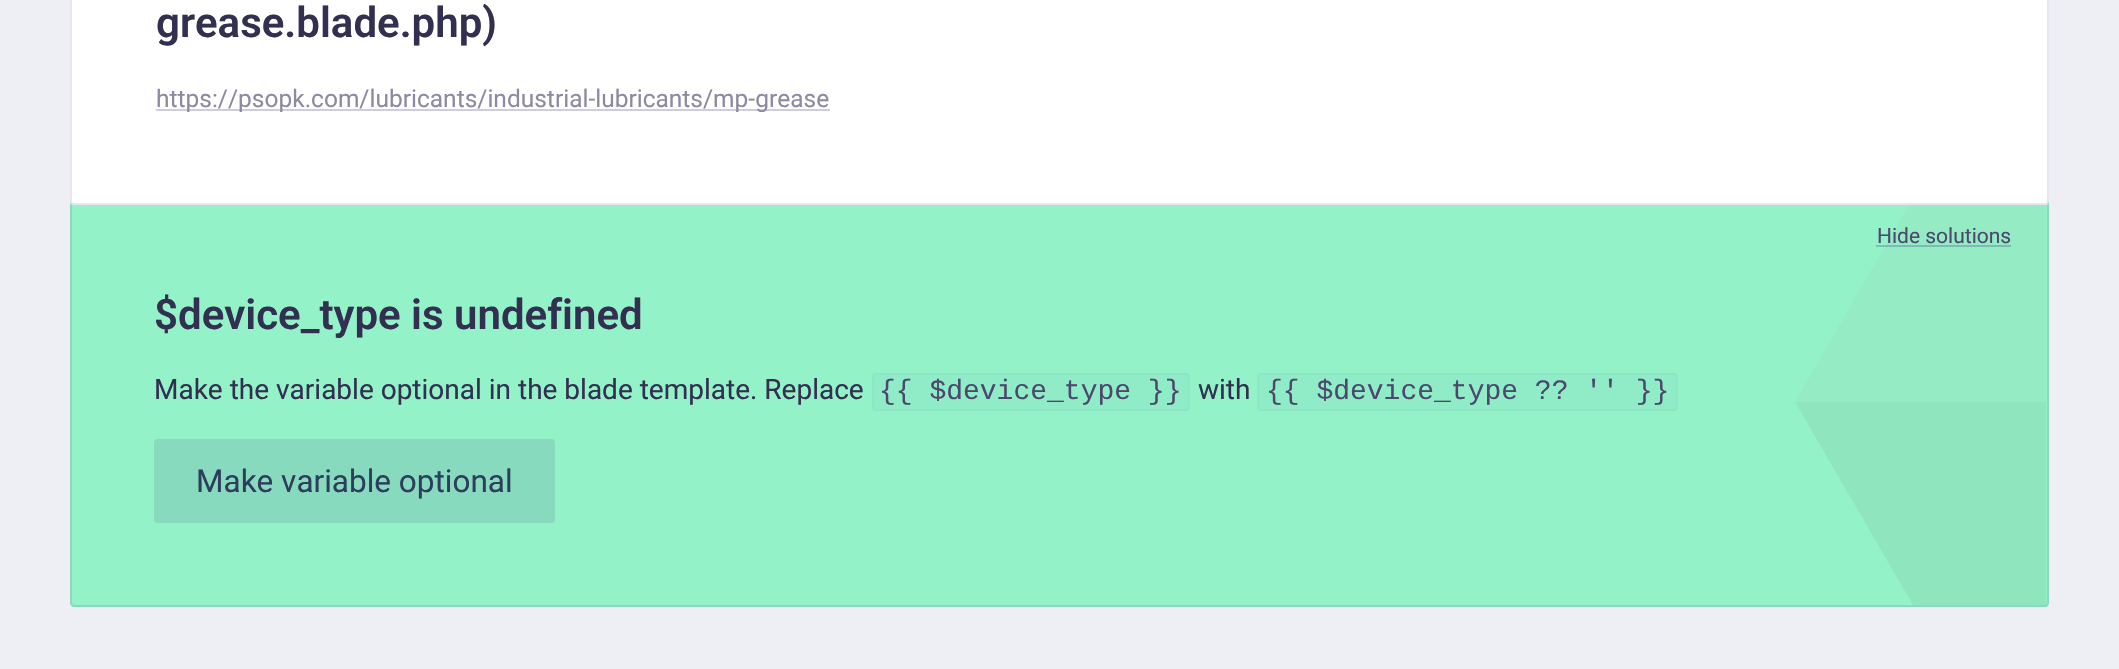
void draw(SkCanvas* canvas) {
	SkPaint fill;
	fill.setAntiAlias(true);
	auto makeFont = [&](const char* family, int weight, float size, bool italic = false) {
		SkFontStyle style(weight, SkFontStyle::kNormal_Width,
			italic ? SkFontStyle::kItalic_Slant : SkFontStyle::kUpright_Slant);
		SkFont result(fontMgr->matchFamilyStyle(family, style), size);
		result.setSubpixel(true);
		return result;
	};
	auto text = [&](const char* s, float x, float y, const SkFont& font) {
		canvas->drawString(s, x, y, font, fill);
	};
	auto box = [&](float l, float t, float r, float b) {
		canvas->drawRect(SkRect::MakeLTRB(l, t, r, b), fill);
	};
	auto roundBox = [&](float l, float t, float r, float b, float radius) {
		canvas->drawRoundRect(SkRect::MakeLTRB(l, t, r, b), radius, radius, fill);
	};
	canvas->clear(0xFFEEEEF5);
	fill.setColor(0xFF94F2C8);
	canvas->drawPath(SkPathBuilder().moveTo(70, 194).lineTo(2049, 194).lineTo(2049, 603).cubicTo(2049, 605, 2047, 607, 2045, 607).lineTo(74, 607).cubicTo(72, 607, 70, 605, 70, 603).close().detach(), fill);
	fill.setStyle(SkPaint::kStroke_Style);
	fill.setStrokeWidth(2);
	fill.setColor(0x1A190064);
	canvas->drawPath(SkPathBuilder().moveTo(71, 195).lineTo(2048, 195).lineTo(2048, 603).cubicTo(2048, 604.5f, 2046.5f, 606, 2045, 606).lineTo(74, 606).cubicTo(72.5f, 606, 71, 604.5f, 71, 603).close().detach(), fill);
	fill.setStyle(SkPaint::kFill_Style);
	fill.setColor(0xFF94EBC4);
	canvas->drawPath(SkPathBuilder().moveTo(2046, 402).lineTo(1795, 402).lineTo(1913, 198).lineTo(2046, 198).close().detach(), fill);
	fill.setColor(0xFFFFFFFF);
	roundBox(70, -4, 2049, 205, 4);
	fill.setStyle(SkPaint::kStroke_Style);
	fill.setColor(0x1A190064);
	canvas->drawRoundRect(SkRect::MakeLTRB(71, -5, 2048, 204), 3, 3, fill);
	fill.setStyle(SkPaint::kFill_Style);
	fill.setColor(0xFFD0CCE0);
	box(156, 109, 830, 111);
	fill.setColor(0x33140064);
	box(1876, 245, 2011, 247);
	fill.setColor(0x123F3F3F);
	canvas->drawPath(SkPathBuilder().moveTo(2046, 605).lineTo(1913, 605).lineTo(1795, 402).lineTo(2046, 402).close().detach(), fill);
	fill.setColor(0xFF90ECC7);
	canvas->drawRoundRect(SkRect::MakeLTRB(873, 374, 1189, 410), 3, 3, fill);
	fill.setStyle(SkPaint::kStroke_Style);
	fill.setColor(0xFF8DE6C6);
	canvas->drawRoundRect(SkRect::MakeLTRB(873, 374, 1189, 410), 3, 3, fill);
	fill.setStyle(SkPaint::kFill_Style);
	fill.setColor(0xFF90ECC7);
	canvas->drawRoundRect(SkRect::MakeLTRB(1258, 374, 1677, 410), 3, 3, fill);
	fill.setStyle(SkPaint::kStroke_Style);
	fill.setColor(0xFF8DE6C6);
	canvas->drawRoundRect(SkRect::MakeLTRB(1258, 374, 1677, 410), 3, 3, fill);
	fill.setStyle(SkPaint::kFill_Style);
	fill.setColor(0xFF88DABE);
	roundBox(154, 439, 555, 523, 4);
	auto font1 = makeFont("Roboto", 600, 42);
	fill.setColor(0xFF332F51);
	text("grease.blade.php)", 156, 37, font1);
	auto font2 = makeFont("Roboto", 400, 24.5f);
	fill.setColor(0xFF8E89A2);
	text("https://psopk.com/lubricants/industrial-lubricants/mp-grease", 156, 107, font2);
	auto font3 = makeFont("Roboto", 400, 21);
	fill.setColor(0xFF4B476D);
	text("Hide solutions", 1877, 243, font3);
	fill.setColor(0xFF332F51);
	text("$device_type is undefined", 154, 329, font1);
	auto font4 = makeFont("Roboto", 400, 28);
	text("Make the variable optional in the blade template. Replace", 154, 399, font4);
	auto font5 = makeFont("Liberation Mono", 400, 28);
	fill.setColor(0xFF4B476D);
	text("{{ $device_type }}", 879, 399, font5);
	fill.setColor(0xFF332F51);
	text("with", 1198, 399, font4);
	fill.setColor(0xFF4B476D);
	text("{{ $device_type ?\077 '' }}", 1266, 399, font5);
	auto font6 = makeFont("Roboto", 400, 31.5f);
	fill.setColor(0xFF2D3E5D);
	text("Make variable optional", 196, 492, font6);
}
